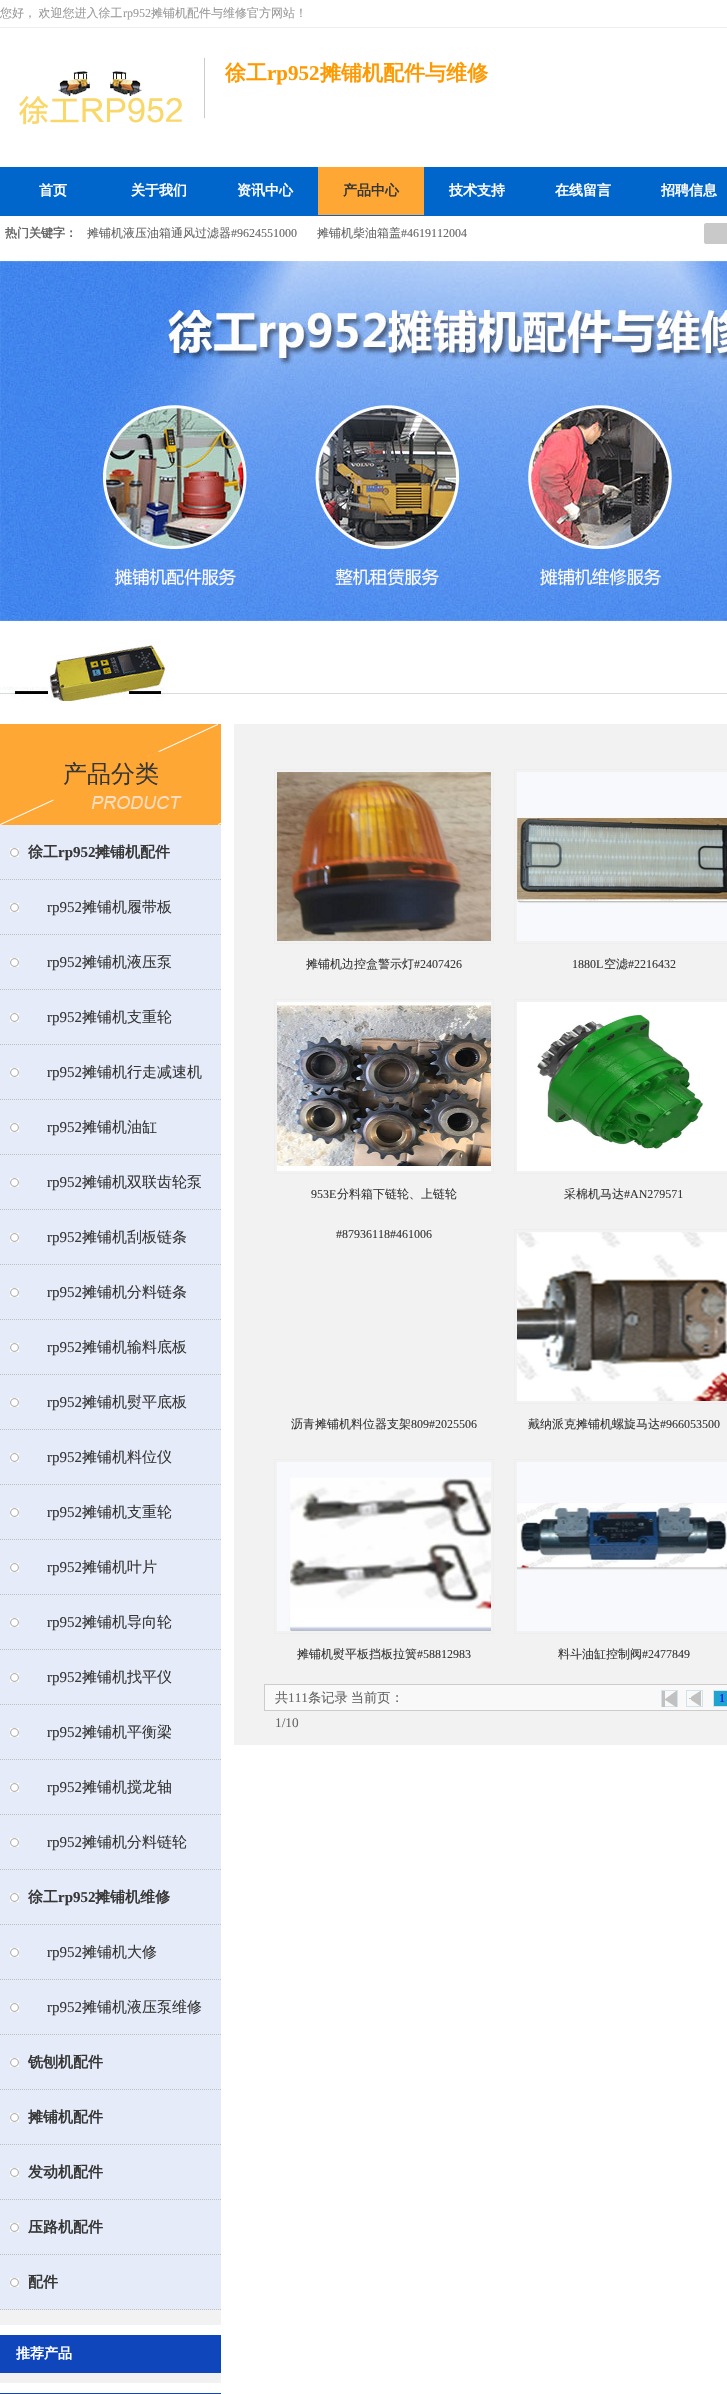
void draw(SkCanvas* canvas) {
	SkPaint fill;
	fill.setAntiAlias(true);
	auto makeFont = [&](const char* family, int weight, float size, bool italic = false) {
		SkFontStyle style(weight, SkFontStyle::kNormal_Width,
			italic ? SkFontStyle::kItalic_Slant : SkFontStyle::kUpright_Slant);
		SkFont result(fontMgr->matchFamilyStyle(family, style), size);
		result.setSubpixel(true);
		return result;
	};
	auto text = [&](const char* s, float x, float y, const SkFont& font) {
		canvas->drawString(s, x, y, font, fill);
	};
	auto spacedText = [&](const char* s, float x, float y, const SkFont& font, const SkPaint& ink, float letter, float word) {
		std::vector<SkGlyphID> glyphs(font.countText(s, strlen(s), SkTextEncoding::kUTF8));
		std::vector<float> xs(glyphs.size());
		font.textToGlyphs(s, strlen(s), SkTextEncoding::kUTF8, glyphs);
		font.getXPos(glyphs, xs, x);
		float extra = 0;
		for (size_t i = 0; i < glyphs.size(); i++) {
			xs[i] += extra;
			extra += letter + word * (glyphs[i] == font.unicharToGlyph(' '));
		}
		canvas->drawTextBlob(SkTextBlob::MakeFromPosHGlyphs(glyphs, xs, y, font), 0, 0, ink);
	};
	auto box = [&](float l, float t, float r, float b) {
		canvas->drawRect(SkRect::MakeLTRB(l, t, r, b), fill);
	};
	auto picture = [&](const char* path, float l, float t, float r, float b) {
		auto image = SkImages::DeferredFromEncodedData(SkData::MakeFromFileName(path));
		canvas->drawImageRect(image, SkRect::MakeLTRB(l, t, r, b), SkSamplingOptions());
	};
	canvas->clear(0xFFFFFFFF);
	fill.setColor(0xFF0066CB);
	box(0, 167, 727, 216);
	fill.setColor(0xFFEEEEEE);
	box(0, 27, 727, 28);
	picture("image0.png", 19, 71, 182, 125);
	fill.setColor(0xFFCCCCCC);
	box(204, 58, 205, 118);
	fill.setColor(0xFFFFA735);
	box(318, 167, 424, 215);
	picture("image1.png", 704, 223, 727, 244);
	picture("image2.png", 0, 261, 727, 621);
	fill.setColor(0xFFDBDBDB);
	box(168, 693, 727, 694);
	picture("image3.png", 0, 639, 168, 701);
	fill.setColor(0xFFF2F2F2);
	box(0, 2310, 221, 2325);
	picture("image4.png", 0, 724, 221, 825);
	fill.setColor(0xFFE5EBF8);
	box(0, 825, 221, 2310);
	picture("image5.png", 10, 848, 19, 857);
	fill.setStyle(SkPaint::kStroke_Style);
	fill.setStrokeWidth(1);
	fill.setColor(0xFFBFBFBF);
	fill.setPathEffect(SkDashPathEffect::Make({{1, 1}}, 0));
	canvas->drawPath(SkPathBuilder().moveTo(0, 879.5f).lineTo(221, 879.5f).detach(), fill);
	fill.setPathEffect(nullptr);
	picture("image5.png", 10, 903, 19, 912);
	fill.setPathEffect(SkDashPathEffect::Make({{1, 1}}, 0));
	canvas->drawPath(SkPathBuilder().moveTo(0, 934.5f).lineTo(221, 934.5f).detach(), fill);
	fill.setPathEffect(nullptr);
	picture("image5.png", 10, 958, 19, 967);
	fill.setPathEffect(SkDashPathEffect::Make({{1, 1}}, 0));
	canvas->drawPath(SkPathBuilder().moveTo(0, 989.5f).lineTo(221, 989.5f).detach(), fill);
	fill.setPathEffect(nullptr);
	picture("image5.png", 10, 1013, 19, 1022);
	fill.setPathEffect(SkDashPathEffect::Make({{1, 1}}, 0));
	canvas->drawPath(SkPathBuilder().moveTo(0, 1044.5f).lineTo(221, 1044.5f).detach(), fill);
	fill.setPathEffect(nullptr);
	picture("image5.png", 10, 1068, 19, 1077);
	fill.setPathEffect(SkDashPathEffect::Make({{1, 1}}, 0));
	canvas->drawPath(SkPathBuilder().moveTo(0, 1099.5f).lineTo(221, 1099.5f).detach(), fill);
	fill.setPathEffect(nullptr);
	picture("image5.png", 10, 1123, 19, 1132);
	fill.setPathEffect(SkDashPathEffect::Make({{1, 1}}, 0));
	canvas->drawPath(SkPathBuilder().moveTo(0, 1154.5f).lineTo(221, 1154.5f).detach(), fill);
	fill.setPathEffect(nullptr);
	picture("image5.png", 10, 1178, 19, 1187);
	fill.setPathEffect(SkDashPathEffect::Make({{1, 1}}, 0));
	canvas->drawPath(SkPathBuilder().moveTo(0, 1209.5f).lineTo(221, 1209.5f).detach(), fill);
	fill.setPathEffect(nullptr);
	picture("image5.png", 10, 1233, 19, 1242);
	fill.setPathEffect(SkDashPathEffect::Make({{1, 1}}, 0));
	canvas->drawPath(SkPathBuilder().moveTo(0, 1264.5f).lineTo(221, 1264.5f).detach(), fill);
	fill.setPathEffect(nullptr);
	picture("image5.png", 10, 1288, 19, 1297);
	fill.setPathEffect(SkDashPathEffect::Make({{1, 1}}, 0));
	canvas->drawPath(SkPathBuilder().moveTo(0, 1319.5f).lineTo(221, 1319.5f).detach(), fill);
	fill.setPathEffect(nullptr);
	picture("image5.png", 10, 1343, 19, 1352);
	fill.setPathEffect(SkDashPathEffect::Make({{1, 1}}, 0));
	canvas->drawPath(SkPathBuilder().moveTo(0, 1374.5f).lineTo(221, 1374.5f).detach(), fill);
	fill.setPathEffect(nullptr);
	picture("image5.png", 10, 1398, 19, 1407);
	fill.setPathEffect(SkDashPathEffect::Make({{1, 1}}, 0));
	canvas->drawPath(SkPathBuilder().moveTo(0, 1429.5f).lineTo(221, 1429.5f).detach(), fill);
	fill.setPathEffect(nullptr);
	picture("image5.png", 10, 1453, 19, 1462);
	fill.setPathEffect(SkDashPathEffect::Make({{1, 1}}, 0));
	canvas->drawPath(SkPathBuilder().moveTo(0, 1484.5f).lineTo(221, 1484.5f).detach(), fill);
	fill.setPathEffect(nullptr);
	picture("image5.png", 10, 1508, 19, 1517);
	fill.setPathEffect(SkDashPathEffect::Make({{1, 1}}, 0));
	canvas->drawPath(SkPathBuilder().moveTo(0, 1539.5f).lineTo(221, 1539.5f).detach(), fill);
	fill.setPathEffect(nullptr);
	picture("image5.png", 10, 1563, 19, 1572);
	fill.setPathEffect(SkDashPathEffect::Make({{1, 1}}, 0));
	canvas->drawPath(SkPathBuilder().moveTo(0, 1594.5f).lineTo(221, 1594.5f).detach(), fill);
	fill.setPathEffect(nullptr);
	picture("image5.png", 10, 1618, 19, 1627);
	fill.setPathEffect(SkDashPathEffect::Make({{1, 1}}, 0));
	canvas->drawPath(SkPathBuilder().moveTo(0, 1649.5f).lineTo(221, 1649.5f).detach(), fill);
	fill.setPathEffect(nullptr);
	picture("image5.png", 10, 1673, 19, 1682);
	fill.setPathEffect(SkDashPathEffect::Make({{1, 1}}, 0));
	canvas->drawPath(SkPathBuilder().moveTo(0, 1704.5f).lineTo(221, 1704.5f).detach(), fill);
	fill.setPathEffect(nullptr);
	picture("image5.png", 10, 1728, 19, 1737);
	fill.setPathEffect(SkDashPathEffect::Make({{1, 1}}, 0));
	canvas->drawPath(SkPathBuilder().moveTo(0, 1759.5f).lineTo(221, 1759.5f).detach(), fill);
	fill.setPathEffect(nullptr);
	picture("image5.png", 10, 1783, 19, 1792);
	fill.setPathEffect(SkDashPathEffect::Make({{1, 1}}, 0));
	canvas->drawPath(SkPathBuilder().moveTo(0, 1814.5f).lineTo(221, 1814.5f).detach(), fill);
	fill.setPathEffect(nullptr);
	picture("image5.png", 10, 1838, 19, 1847);
	fill.setPathEffect(SkDashPathEffect::Make({{1, 1}}, 0));
	canvas->drawPath(SkPathBuilder().moveTo(0, 1869.5f).lineTo(221, 1869.5f).detach(), fill);
	fill.setPathEffect(nullptr);
	picture("image5.png", 10, 1893, 19, 1902);
	fill.setPathEffect(SkDashPathEffect::Make({{1, 1}}, 0));
	canvas->drawPath(SkPathBuilder().moveTo(0, 1924.5f).lineTo(221, 1924.5f).detach(), fill);
	fill.setPathEffect(nullptr);
	picture("image5.png", 10, 1948, 19, 1957);
	fill.setPathEffect(SkDashPathEffect::Make({{1, 1}}, 0));
	canvas->drawPath(SkPathBuilder().moveTo(0, 1979.5f).lineTo(221, 1979.5f).detach(), fill);
	fill.setPathEffect(nullptr);
	picture("image5.png", 10, 2003, 19, 2012);
	fill.setPathEffect(SkDashPathEffect::Make({{1, 1}}, 0));
	canvas->drawPath(SkPathBuilder().moveTo(0, 2034.5f).lineTo(221, 2034.5f).detach(), fill);
	fill.setPathEffect(nullptr);
	picture("image5.png", 10, 2058, 19, 2067);
	fill.setPathEffect(SkDashPathEffect::Make({{1, 1}}, 0));
	canvas->drawPath(SkPathBuilder().moveTo(0, 2089.5f).lineTo(221, 2089.5f).detach(), fill);
	fill.setPathEffect(nullptr);
	picture("image5.png", 10, 2113, 19, 2122);
	fill.setPathEffect(SkDashPathEffect::Make({{1, 1}}, 0));
	canvas->drawPath(SkPathBuilder().moveTo(0, 2144.5f).lineTo(221, 2144.5f).detach(), fill);
	fill.setPathEffect(nullptr);
	picture("image5.png", 10, 2168, 19, 2177);
	fill.setPathEffect(SkDashPathEffect::Make({{1, 1}}, 0));
	canvas->drawPath(SkPathBuilder().moveTo(0, 2199.5f).lineTo(221, 2199.5f).detach(), fill);
	fill.setPathEffect(nullptr);
	picture("image5.png", 10, 2223, 19, 2232);
	fill.setPathEffect(SkDashPathEffect::Make({{1, 1}}, 0));
	canvas->drawPath(SkPathBuilder().moveTo(0, 2254.5f).lineTo(221, 2254.5f).detach(), fill);
	fill.setPathEffect(nullptr);
	picture("image5.png", 10, 2278, 19, 2287);
	fill.setPathEffect(SkDashPathEffect::Make({{1, 1}}, 0));
	canvas->drawPath(SkPathBuilder().moveTo(0, 2309.5f).lineTo(221, 2309.5f).detach(), fill);
	fill.setPathEffect(nullptr);
	fill.setStyle(SkPaint::kFill_Style);
	fill.setColor(0xFFF2F2F2);
	box(0, 2373, 221, 2383);
	fill.setColor(0xFF0F46BC);
	box(0, 2335, 221, 2373);
	box(0, 2393, 221, 2394);
	fill.setColor(0xFFF2F2F2);
	box(234, 724, 727, 1745);
	fill.setStyle(SkPaint::kStroke_Style);
	fill.setColor(0xFFEEEEEE);
	canvas->drawRect(SkRect::MakeLTRB(274.5f, 769.5f, 493.5f, 943.5f), fill);
	picture("image6.png", 277, 772, 491, 941);
	canvas->drawRect(SkRect::MakeLTRB(514.5f, 769.5f, 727.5f, 943.5f), fill);
	picture("image7.png", 517, 772, 727, 941);
	canvas->drawRect(SkRect::MakeLTRB(274.5f, 999.5f, 493.5f, 1173.5f), fill);
	picture("image8.png", 277, 1002, 491, 1171);
	canvas->drawRect(SkRect::MakeLTRB(514.5f, 999.5f, 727.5f, 1173.5f), fill);
	picture("image9.png", 517, 1002, 727, 1171);
	canvas->drawRect(SkRect::MakeLTRB(514.5f, 1229.5f, 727.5f, 1403.5f), fill);
	picture("image10.png", 517, 1232, 727, 1401);
	canvas->drawRect(SkRect::MakeLTRB(274.5f, 1459.5f, 493.5f, 1633.5f), fill);
	picture("image11.png", 277, 1462, 491, 1631);
	canvas->drawRect(SkRect::MakeLTRB(514.5f, 1459.5f, 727.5f, 1633.5f), fill);
	picture("image12.png", 517, 1462, 727, 1631);
	fill.setStyle(SkPaint::kFill_Style);
	fill.setColor(0xFFF9F9F9);
	canvas->drawRect(SkRect::MakeLTRB(264.5f, 1684.5f, 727.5f, 1710.5f), fill);
	fill.setStyle(SkPaint::kStroke_Style);
	fill.setColor(0xFFCCCCCC);
	canvas->drawRect(SkRect::MakeLTRB(264.5f, 1684.5f, 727.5f, 1710.5f), fill);
	fill.setColor(0xFFD4E3E9);
	canvas->drawRect(SkRect::MakeLTRB(661.5f, 1690.5f, 677.5f, 1706.5f), fill);
	picture("image13.png", 662, 1691, 677, 1707);
	canvas->drawRect(SkRect::MakeLTRB(686.5f, 1690.5f, 702.5f, 1706.5f), fill);
	picture("image14.png", 689, 1691, 701, 1706);
	fill.setStyle(SkPaint::kFill_Style);
	fill.setColor(0xFF1FA4D1);
	canvas->drawRect(SkRect::MakeLTRB(713.5f, 1690.5f, 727.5f, 1706.5f), fill);
	fill.setStyle(SkPaint::kStroke_Style);
	fill.setColor(0xFFD4E3E9);
	canvas->drawRect(SkRect::MakeLTRB(713.5f, 1690.5f, 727.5f, 1706.5f), fill);
	auto font1 = makeFont("WenQuanYi Zen Hei", 500, 12);
	fill.setStyle(SkPaint::kFill_Style);
	fill.setColor(0xFF9B9A9A);
	spacedText("您好， 欢迎您进入徐工", 0, 17, font1, fill, 0, -1);
	auto font2 = makeFont("Liberation Serif", 400, 12);
	text("rp952", 123, 17, font2);
	text("摊铺机配件与维修官方网站！", 151, 17, font1);
	auto font3 = makeFont("WenQuanYi Zen Hei", 700, 21);
	fill.setColor(0xFFFF9900);
	text("徐工", 225, 80, font3);
	auto font4 = makeFont("Liberation Serif", 700, 21);
	text("rp952", 267, 80, font4);
	text("摊铺机配件与维修", 320, 80, font3);
	auto font5 = makeFont("WenQuanYi Zen Hei", 700, 14);
	fill.setColor(0xFFFFFFFF);
	text("首页", 39, 195, font5);
	text("关于我们", 131, 195, font5);
	text("资讯中心", 237, 195, font5);
	fill.setColor(0xFF373737);
	text("产品中心", 343, 195, font5);
	fill.setColor(0xFFFFFFFF);
	text("技术支持", 449, 195, font5);
	text("在线留言", 555, 195, font5);
	text("招聘信息", 661, 195, font5);
	auto font6 = makeFont("WenQuanYi Zen Hei", 700, 12);
	fill.setColor(0xFF666666);
	text("热门关键字：", 5, 237, font6);
	text("摊铺机液压油箱通风过滤器", 87, 237, font1);
	text("#9624551000", 231, 237, font2);
	text("摊铺机柴油箱盖", 317, 237, font1);
	text("#4619112004", 401, 237, font2);
	auto font7 = makeFont("WenQuanYi Zen Hei", 500, 24);
	fill.setColor(0xFF373737);
	text("产品分类", 63, 782, font7);
	auto font8 = makeFont("WenQuanYi Zen Hei", 700, 15);
	text("徐工", 28, 857, font8);
	auto font9 = makeFont("Liberation Serif", 700, 15);
	text("rp952", 58, 857, font9);
	text("摊铺机配件", 95, 857, font8);
	auto font10 = makeFont("Liberation Serif", 400, 15);
	text("rp952", 47, 912, font10);
	auto font11 = makeFont("WenQuanYi Zen Hei", 500, 15);
	text("摊铺机履带板", 82, 912, font11);
	text("rp952", 47, 967, font10);
	text("摊铺机液压泵", 82, 967, font11);
	text("rp952", 47, 1022, font10);
	text("摊铺机支重轮", 82, 1022, font11);
	text("rp952", 47, 1077, font10);
	text("摊铺机行走减速机", 82, 1077, font11);
	text("rp952", 47, 1132, font10);
	text("摊铺机油缸", 82, 1132, font11);
	text("rp952", 47, 1187, font10);
	text("摊铺机双联齿轮泵", 82, 1187, font11);
	text("rp952", 47, 1242, font10);
	text("摊铺机刮板链条", 82, 1242, font11);
	text("rp952", 47, 1297, font10);
	text("摊铺机分料链条", 82, 1297, font11);
	text("rp952", 47, 1352, font10);
	text("摊铺机输料底板", 82, 1352, font11);
	text("rp952", 47, 1407, font10);
	text("摊铺机熨平底板", 82, 1407, font11);
	text("rp952", 47, 1462, font10);
	text("摊铺机料位仪", 82, 1462, font11);
	text("rp952", 47, 1517, font10);
	text("摊铺机支重轮", 82, 1517, font11);
	text("rp952", 47, 1572, font10);
	text("摊铺机叶片", 82, 1572, font11);
	text("rp952", 47, 1627, font10);
	text("摊铺机导向轮", 82, 1627, font11);
	text("rp952", 47, 1682, font10);
	text("摊铺机找平仪", 82, 1682, font11);
	text("rp952", 47, 1737, font10);
	text("摊铺机平衡梁", 82, 1737, font11);
	text("rp952", 47, 1792, font10);
	text("摊铺机搅龙轴", 82, 1792, font11);
	text("rp952", 47, 1847, font10);
	text("摊铺机分料链轮", 82, 1847, font11);
	text("徐工", 28, 1902, font8);
	text("rp952", 58, 1902, font9);
	text("摊铺机维修", 95, 1902, font8);
	text("rp952", 47, 1957, font10);
	text("摊铺机大修", 82, 1957, font11);
	text("rp952", 47, 2012, font10);
	text("摊铺机液压泵维修", 82, 2012, font11);
	text("铣刨机配件", 28, 2067, font8);
	text("摊铺机配件", 28, 2122, font8);
	text("发动机配件", 28, 2177, font8);
	text("压路机配件", 28, 2232, font8);
	text("配件", 28, 2287, font8);
	fill.setColor(0xFFFFFFFF);
	text("推荐产品", 16, 2358, font5);
	fill.setColor(0xFF373737);
	text("摊铺机边控盒警示灯", 306, 968, font1);
	text("#2407426", 414, 968, font2);
	text("1880L", 572, 968, font2);
	text("空滤", 604, 968, font1);
	text("#2216432", 628, 968, font2);
	text("953E", 311, 1198, font2);
	text("分料箱下链轮、上链轮", 337, 1198, font1);
	text("#87936118#461006", 336, 1238, font2);
	text("采棉机马达", 564, 1198, font1);
	text("#AN279571", 624, 1198, font2);
	text("沥青摊铺机料位器支架", 291, 1428, font1);
	text("809#2025506", 411, 1428, font2);
	text("戴纳派克摊铺机螺旋马达", 528, 1428, font1);
	text("#966053500", 660, 1428, font2);
	text("摊铺机熨平板挡板拉簧", 297, 1658, font1);
	text("#58812983", 417, 1658, font2);
	text("料斗油缸控制阀", 558, 1658, font1);
	text("#2477849", 642, 1658, font2);
	auto font12 = makeFont("WenQuanYi Zen Hei", 500, 13.25f);
	fill.setColor(0xFF666666);
	text("共", 275, 1702, font12);
	auto font13 = makeFont("Liberation Serif", 400, 13.25f);
	text("111", 288, 1702, font13);
	spacedText("条记录 当前页：", 308, 1702, font12, fill, 0, -1);
	text("1/10", 275, 1727, font13);
	fill.setColor(0xFF0000FF);
	text("1", 719, 1702, font2);
}
